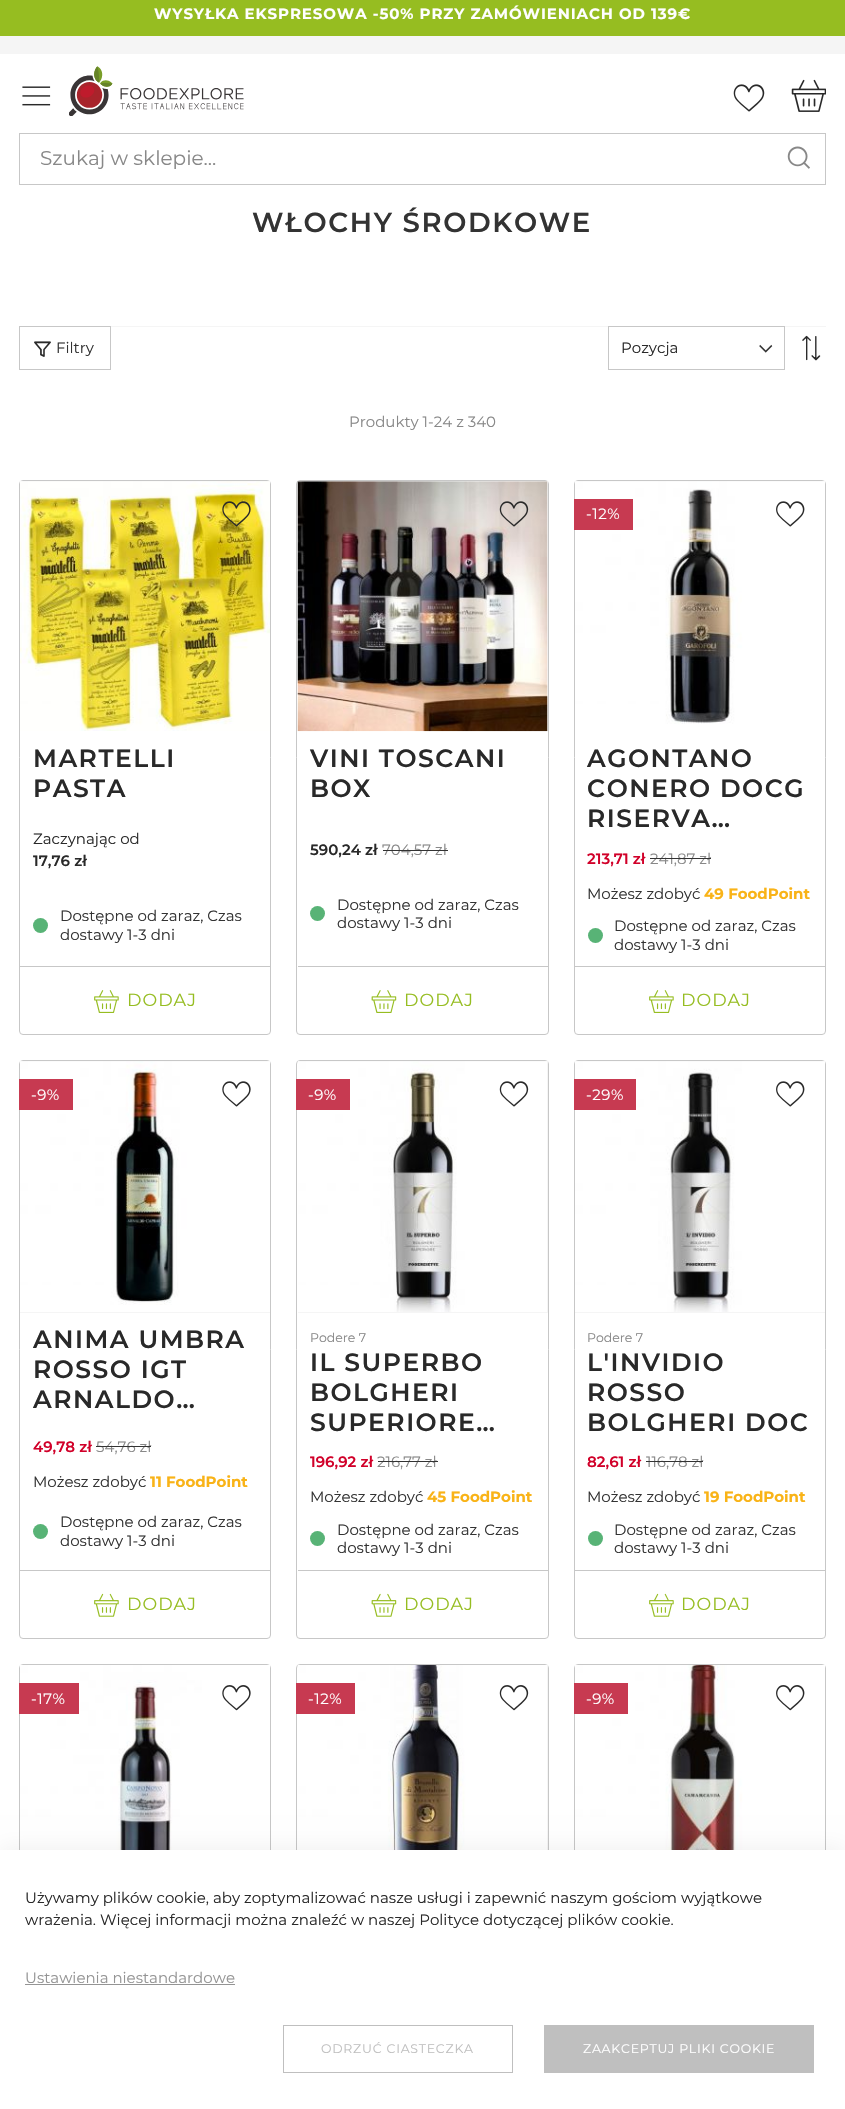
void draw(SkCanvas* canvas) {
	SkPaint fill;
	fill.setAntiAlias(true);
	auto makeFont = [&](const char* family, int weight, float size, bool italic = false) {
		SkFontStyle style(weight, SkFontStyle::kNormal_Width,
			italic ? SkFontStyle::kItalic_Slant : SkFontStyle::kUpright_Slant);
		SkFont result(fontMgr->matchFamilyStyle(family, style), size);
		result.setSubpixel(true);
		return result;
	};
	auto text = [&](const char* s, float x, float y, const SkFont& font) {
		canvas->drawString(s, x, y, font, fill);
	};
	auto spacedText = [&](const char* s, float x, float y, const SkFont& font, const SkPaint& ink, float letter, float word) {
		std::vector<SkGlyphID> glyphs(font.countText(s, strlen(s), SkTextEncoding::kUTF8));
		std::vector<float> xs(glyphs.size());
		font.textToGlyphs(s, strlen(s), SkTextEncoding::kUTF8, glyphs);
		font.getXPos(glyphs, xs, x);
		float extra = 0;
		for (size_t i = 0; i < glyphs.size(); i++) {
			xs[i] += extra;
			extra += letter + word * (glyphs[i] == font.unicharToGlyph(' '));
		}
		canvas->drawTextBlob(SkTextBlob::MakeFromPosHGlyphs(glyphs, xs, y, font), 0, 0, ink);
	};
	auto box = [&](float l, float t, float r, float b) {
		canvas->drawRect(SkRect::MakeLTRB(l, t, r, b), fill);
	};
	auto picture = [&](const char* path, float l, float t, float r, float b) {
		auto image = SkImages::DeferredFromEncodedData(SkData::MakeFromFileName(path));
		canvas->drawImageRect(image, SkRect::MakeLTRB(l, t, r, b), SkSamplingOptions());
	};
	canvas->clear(0xFFFFFFFF);
	fill.setColor(0xFFF5F5F5);
	box(0, 36, 845, 54);
	fill.setColor(0xFF96BD21);
	box(0, 0, 845, 36);
	picture("image0.png", 22, 86, 51, 106);
	picture("image1.png", 69, 66, 244, 116);
	picture("image2.png", 733, 84, 765, 112);
	picture("image3.png", 791, 79, 826, 112);
	fill.setStyle(SkPaint::kStroke_Style);
	fill.setStrokeWidth(1);
	fill.setColor(0xFFC7C7C7);
	canvas->drawRect(SkRect::MakeLTRB(19.5f, 133.5f, 825.5f, 184.5f), fill);
	picture("image4.png", 787, 146, 810, 169);
	picture("image5.png", 759, 344, 773, 353);
	fill.setStyle(SkPaint::kFill_Style);
	fill.setColor(0xFFF5F5F5);
	box(111, 326, 826, 327);
	fill.setStyle(SkPaint::kStroke_Style);
	fill.setColor(0xFFC7C7C7);
	canvas->drawRect(SkRect::MakeLTRB(608.5f, 326.5f, 784.5f, 369.5f), fill);
	picture("image6.png", 802, 335, 821, 361);
	canvas->drawRoundRect(SkRect::MakeLTRB(19.5f, 480.5f, 270.5f, 1034.5f), 3.5f, 3.5f, fill);
	fill.setStyle(SkPaint::kFill_Style);
	fill.setColor(0xFFF5F5F5);
	box(20, 481, 270, 482);
	picture("image8.png", 20, 481, 270, 731);
	picture("image7.png", 222, 501, 251, 527);
	fill.setColor(0xFF58B376);
	canvas->drawCircle(40.5f, 925.5f, 7.5f, fill);
	fill.setColor(0xFFC7C7C7);
	box(20, 966, 270, 967);
	picture("image9.png", 94, 990, 119, 1013);
	fill.setStyle(SkPaint::kStroke_Style);
	canvas->drawRoundRect(SkRect::MakeLTRB(296.5f, 480.5f, 548.5f, 1034.5f), 3.5f, 3.5f, fill);
	fill.setStyle(SkPaint::kFill_Style);
	fill.setColor(0xFFF5F5F5);
	box(298, 481, 548, 731);
	picture("image11.png", 297, 481, 548, 732);
	picture("image10.png", 499, 501, 529, 527);
	fill.setColor(0xFF58B376);
	canvas->drawCircle(317.5f, 913.5f, 7.5f, fill);
	fill.setColor(0xFFC7C7C7);
	box(298, 966, 548, 967);
	picture("image12.png", 371, 990, 397, 1013);
	fill.setStyle(SkPaint::kStroke_Style);
	canvas->drawRoundRect(SkRect::MakeLTRB(574.5f, 480.5f, 825.5f, 1034.5f), 3.5f, 3.5f, fill);
	fill.setStyle(SkPaint::kFill_Style);
	fill.setColor(0xFFF5F5F5);
	box(575, 481, 825, 482);
	picture("image14.png", 575, 481, 825, 731);
	picture("image13.png", 776, 501, 805, 527);
	fill.setColor(0xFFC73A51);
	box(574, 499, 633, 530);
	fill.setColor(0xFF58B376);
	canvas->drawCircle(595.5f, 935.5f, 7.5f, fill);
	fill.setColor(0xFFC7C7C7);
	box(575, 966, 825, 967);
	picture("image9.png", 649, 990, 674, 1013);
	fill.setStyle(SkPaint::kStroke_Style);
	canvas->drawRoundRect(SkRect::MakeLTRB(19.5f, 1060.5f, 270.5f, 1638.5f), 3.5f, 3.5f, fill);
	fill.setStyle(SkPaint::kFill_Style);
	fill.setColor(0xFFF5F5F5);
	box(20, 1061, 270, 1313);
	picture("image16.png", 20, 1061, 270, 1312);
	picture("image15.png", 222, 1081, 251, 1107);
	fill.setColor(0xFFC73A51);
	box(19, 1079, 73, 1110);
	fill.setColor(0xFF58B376);
	canvas->drawCircle(40.5f, 1531.5f, 7.5f, fill);
	fill.setColor(0xFFC7C7C7);
	box(20, 1570, 270, 1571);
	picture("image17.png", 94, 1593, 119, 1617);
	fill.setStyle(SkPaint::kStroke_Style);
	canvas->drawRoundRect(SkRect::MakeLTRB(296.5f, 1060.5f, 548.5f, 1638.5f), 3.5f, 3.5f, fill);
	fill.setStyle(SkPaint::kFill_Style);
	fill.setColor(0xFFF5F5F5);
	box(298, 1061, 548, 1313);
	picture("image19.png", 297, 1061, 547, 1312);
	picture("image18.png", 499, 1081, 529, 1107);
	fill.setColor(0xFFC73A51);
	box(296, 1079, 350, 1110);
	fill.setColor(0xFF58B376);
	canvas->drawCircle(317.5f, 1538.5f, 7.5f, fill);
	fill.setColor(0xFFC7C7C7);
	box(298, 1570, 548, 1571);
	picture("image20.png", 371, 1593, 397, 1617);
	fill.setStyle(SkPaint::kStroke_Style);
	canvas->drawRoundRect(SkRect::MakeLTRB(574.5f, 1060.5f, 825.5f, 1638.5f), 3.5f, 3.5f, fill);
	fill.setStyle(SkPaint::kFill_Style);
	fill.setColor(0xFFF5F5F5);
	box(575, 1061, 825, 1313);
	picture("image21.png", 575, 1061, 825, 1312);
	picture("image13.png", 776, 1081, 805, 1107);
	fill.setColor(0xFFC73A51);
	box(574, 1079, 636, 1110);
	fill.setColor(0xFF58B376);
	canvas->drawCircle(595.5f, 1538.5f, 7.5f, fill);
	fill.setColor(0xFFC7C7C7);
	box(575, 1570, 825, 1571);
	picture("image17.png", 649, 1593, 674, 1617);
	fill.setStyle(SkPaint::kStroke_Style);
	canvas->drawRoundRect(SkRect::MakeLTRB(19.5f, 1664.5f, 270.5f, 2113.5f), 3.5f, 3.5f, fill);
	picture("image22.png", 20, 1665, 270, 1850);
	fill.setStyle(SkPaint::kFill_Style);
	fill.setColor(0xFFC73A51);
	box(19, 1683, 79, 1714);
	picture("image23.png", 222, 1685, 251, 1711);
	fill.setStyle(SkPaint::kStroke_Style);
	fill.setColor(0xFFC7C7C7);
	canvas->drawRoundRect(SkRect::MakeLTRB(296.5f, 1664.5f, 548.5f, 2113.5f), 3.5f, 3.5f, fill);
	fill.setStyle(SkPaint::kFill_Style);
	fill.setColor(0xFFF5F5F5);
	box(547, 1665, 548, 1850);
	picture("image24.png", 297, 1665, 547, 1850);
	fill.setColor(0xFFC73A51);
	box(296, 1683, 355, 1714);
	picture("image25.png", 499, 1685, 529, 1711);
	fill.setStyle(SkPaint::kStroke_Style);
	fill.setColor(0xFFC7C7C7);
	canvas->drawRoundRect(SkRect::MakeLTRB(574.5f, 1664.5f, 825.5f, 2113.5f), 3.5f, 3.5f, fill);
	picture("image26.png", 575, 1665, 825, 1850);
	fill.setStyle(SkPaint::kFill_Style);
	fill.setColor(0xFFC73A51);
	box(574, 1683, 628, 1714);
	picture("image27.png", 776, 1685, 805, 1711);
	fill.setStyle(SkPaint::kStroke_Style);
	fill.setColor(0xFFC7C7C7);
	canvas->drawRect(SkRect::MakeLTRB(19.5f, 326.5f, 110.5f, 369.5f), fill);
	picture("image28.png", 34, 341, 51, 357);
	fill.setStyle(SkPaint::kFill_Style);
	fill.setColor(0x0F000000);
	fill.setMaskFilter(SkMaskFilter::MakeBlur(kNormal_SkBlurStyle, 11));
	canvas->drawRect(SkRect::MakeLTRB(0, 1848, 845, 2108), fill);
	fill.setMaskFilter(nullptr);
	fill.setColor(0xFFFFFFFF);
	box(0, 1850, 845, 2109);
	fill.setColor(0xFF949494);
	box(25, 1984, 235, 1985);
	fill.setStyle(SkPaint::kStroke_Style);
	fill.setColor(0xFFBFBFBF);
	canvas->drawRect(SkRect::MakeLTRB(283.5f, 2025.5f, 512.5f, 2072.5f), fill);
	fill.setStyle(SkPaint::kFill_Style);
	box(544, 2025, 814, 2073);
	auto font1 = makeFont("Montserrat", 700, 15);
	fill.setColor(0xFFFFFFFF);
	spacedText("WYSYŁKA EKSPRESOWA -50% PRZY ZAMÓWIENIACH OD 139€", 154, 19, font1, fill, 0.9f, 0);
	auto font2 = makeFont("Montserrat", 400, 20);
	fill.setColor(0xFF888888);
	text("Szukaj w sklepie...", 40, 165, font2);
	auto font3 = makeFont("Montserrat", 600, 27.5f);
	fill.setColor(0xFF333333);
	spacedText("WŁOCHY ŚRODKOWE", 252, 232, font3, fill, 1.6f, 0);
	auto font4 = makeFont("Montserrat", 400, 15);
	fill.setColor(0xFF292929);
	text("Pozycja", 621, 353, font4);
	fill.setColor(0xFF888888);
	text("Produkty 1-24 z 340", 349, 427, font4);
	auto font5 = makeFont("Montserrat", 600, 25);
	fill.setColor(0xFF292929);
	spacedText("MARTELLI", 33, 767, font5, fill, 1.5f, 0);
	spacedText("PASTA", 33, 797, font5, fill, 1.5f, 0);
	text("Zaczynając od", 33, 844, font4);
	auto font6 = makeFont("Montserrat", 600, 15);
	text("17,76 zł", 33, 866, font6);
	fill.setColor(0xFF333333);
	text("Dostępne od zaraz, Czas", 60, 921, font4);
	text("dostawy 1-3 dni", 60, 940, font4);
	auto font7 = makeFont("Montserrat", 400, 17.5f);
	fill.setColor(0xFF96BD21);
	spacedText("DODAJ", 127, 1006, font7, fill, 1, 0);
	fill.setColor(0xFF292929);
	spacedText("VINI TOSCANI", 310, 767, font5, fill, 1.5f, 0);
	spacedText("BOX", 310, 797, font5, fill, 1.5f, 0);
	text("590,24 zł", 310, 855, font6);
	fill.setColor(0xFF888888);
	text("704,57 zł", 382, 855, font4);
	fill.setColor(0xFF333333);
	box(383, 850, 448, 851);
	text("Dostępne od zaraz, Czas", 337, 910, font4);
	text("dostawy 1-3 dni", 337, 928, font4);
	fill.setColor(0xFF96BD21);
	spacedText("DODAJ", 404, 1006, font7, fill, 1, 0);
	fill.setColor(0xFFFFFFFF);
	spacedText("-12%", 586, 519, font4, fill, 0.5f, 0);
	fill.setColor(0xFF292929);
	spacedText("AGONTANO", 587, 767, font5, fill, 1.5f, 0);
	spacedText("CONERO DOCG", 587, 797, font5, fill, 1.5f, 0);
	spacedText("RISERVA…", 587, 827, font5, fill, 1.5f, 0);
	fill.setColor(0xFFD10029);
	text("213,71 zł", 587, 864, font6);
	fill.setColor(0xFF888888);
	text("241,87 zł", 650, 864, font4);
	fill.setColor(0xFF333333);
	box(650, 858, 711, 859);
	text("Możesz zdobyć", 587, 899, font4);
	fill.setColor(0xFFF9B317);
	text("49 FoodPoint", 704, 899, font1);
	fill.setColor(0xFF333333);
	text("Dostępne od zaraz, Czas", 614, 931, font4);
	text("dostawy 1-3 dni", 614, 950, font4);
	fill.setColor(0xFF96BD21);
	spacedText("DODAJ", 681, 1006, font7, fill, 1, 0);
	fill.setColor(0xFFFFFFFF);
	spacedText("-9%", 31, 1100, font4, fill, 0.5f, 0);
	fill.setColor(0xFF292929);
	spacedText("ANIMA UMBRA", 33, 1348, font5, fill, 1.5f, 0);
	spacedText("ROSSO IGT", 33, 1378, font5, fill, 1.5f, 0);
	spacedText("ARNALDO…", 33, 1408, font5, fill, 1.5f, 0);
	fill.setColor(0xFFD10029);
	text("49,78 zł", 33, 1452, font6);
	fill.setColor(0xFF888888);
	text("54,76 zł", 96, 1452, font4);
	fill.setColor(0xFF333333);
	box(96, 1446, 151, 1447);
	text("Możesz zdobyć", 33, 1487, font4);
	fill.setColor(0xFFF9B317);
	text("11 FoodPoint", 150, 1487, font1);
	fill.setColor(0xFF333333);
	text("Dostępne od zaraz, Czas", 60, 1527, font4);
	text("dostawy 1-3 dni", 60, 1546, font4);
	fill.setColor(0xFF96BD21);
	spacedText("DODAJ", 127, 1610, font7, fill, 1, 0);
	fill.setColor(0xFFFFFFFF);
	spacedText("-9%", 308, 1100, font4, fill, 0.5f, 0);
	auto font8 = makeFont("Montserrat", 400, 12.5f);
	fill.setColor(0xFF888888);
	text("Podere 7", 310, 1342, font8);
	fill.setColor(0xFF292929);
	spacedText("IL SUPERBO", 310, 1371, font5, fill, 1.5f, 0);
	spacedText("BOLGHERI", 310, 1401, font5, fill, 1.5f, 0);
	spacedText("SUPERIORE…", 310, 1431, font5, fill, 1.5f, 0);
	fill.setColor(0xFFD10029);
	text("196,92 zł", 310, 1467, font6);
	fill.setColor(0xFF888888);
	text("216,77 zł", 377, 1467, font4);
	fill.setColor(0xFF333333);
	box(378, 1461, 438, 1462);
	text("Możesz zdobyć", 310, 1502, font4);
	fill.setColor(0xFFF9B317);
	text("45 FoodPoint", 427, 1502, font1);
	fill.setColor(0xFF333333);
	text("Dostępne od zaraz, Czas", 337, 1535, font4);
	text("dostawy 1-3 dni", 337, 1553, font4);
	fill.setColor(0xFF96BD21);
	spacedText("DODAJ", 404, 1610, font7, fill, 1, 0);
	fill.setColor(0xFFFFFFFF);
	spacedText("-29%", 586, 1100, font4, fill, 0.5f, 0);
	fill.setColor(0xFF888888);
	text("Podere 7", 587, 1342, font8);
	fill.setColor(0xFF292929);
	spacedText("L'INVIDIO", 587, 1371, font5, fill, 1.5f, 0);
	spacedText("ROSSO", 587, 1401, font5, fill, 1.5f, 0);
	spacedText("BOLGHERI DOC", 587, 1431, font5, fill, 1.5f, 0);
	fill.setColor(0xFFD10029);
	text("82,61 zł", 587, 1467, font6);
	fill.setColor(0xFF888888);
	text("116,78 zł", 646, 1467, font4);
	fill.setColor(0xFF333333);
	box(646, 1461, 703, 1462);
	text("Możesz zdobyć", 587, 1502, font4);
	fill.setColor(0xFFF9B317);
	text("19 FoodPoint", 704, 1502, font1);
	fill.setColor(0xFF333333);
	text("Dostępne od zaraz, Czas", 614, 1535, font4);
	text("dostawy 1-3 dni", 614, 1553, font4);
	fill.setColor(0xFF96BD21);
	spacedText("DODAJ", 681, 1610, font7, fill, 1, 0);
	fill.setColor(0xFFFFFFFF);
	spacedText("-17%", 31, 1704, font4, fill, 0.5f, 0);
	spacedText("-12%", 308, 1704, font4, fill, 0.5f, 0);
	spacedText("-9%", 586, 1704, font4, fill, 0.5f, 0);
	fill.setColor(0xFF333333);
	text("Filtry", 56, 353, font4);
	fill.setColor(0xFF292929);
	text("Używamy plików cookie, aby zoptymalizować nasze usługi i zapewnić naszym gościom wyjątkowe", 25, 1903, font4);
	text("wrażenia. Więcej informacji można znaleźć w naszej Polityce dotyczącej plików cookie.", 25, 1925, font4);
	fill.setColor(0xFF949494);
	text("Ustawienia niestandardowe", 25, 1983, font4);
	fill.setColor(0xFFBFBFBF);
	spacedText("ODRZUĆ CIASTECZKA", 321, 2053, font8, fill, 0.75f, 0);
	fill.setColor(0xFFFFFFFF);
	spacedText("ZAAKCEPTUJ PLIKI COOKIE", 583, 2053, font8, fill, 0.75f, 0);
}
